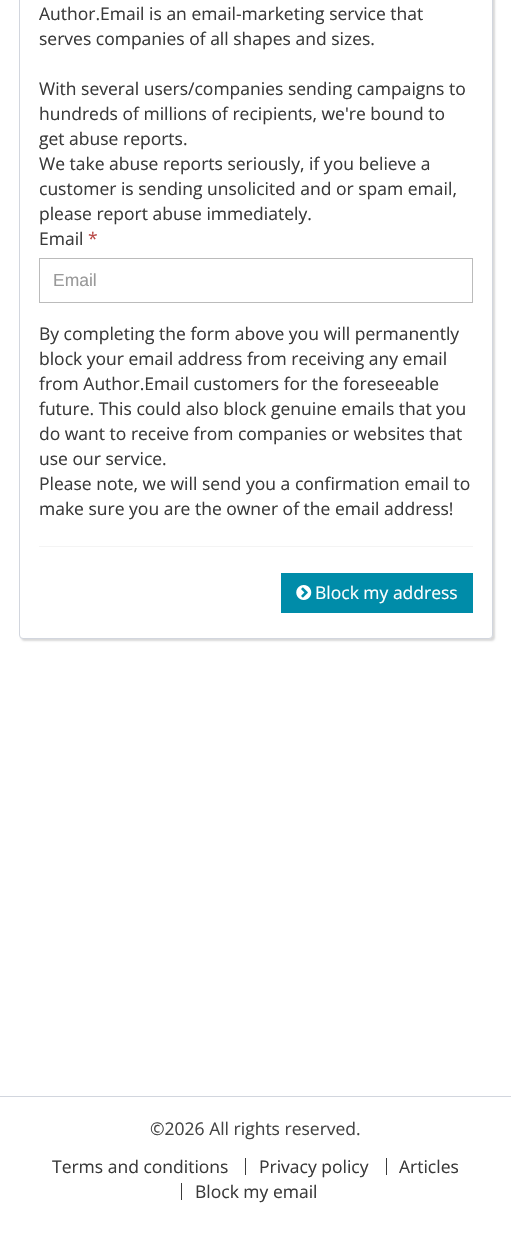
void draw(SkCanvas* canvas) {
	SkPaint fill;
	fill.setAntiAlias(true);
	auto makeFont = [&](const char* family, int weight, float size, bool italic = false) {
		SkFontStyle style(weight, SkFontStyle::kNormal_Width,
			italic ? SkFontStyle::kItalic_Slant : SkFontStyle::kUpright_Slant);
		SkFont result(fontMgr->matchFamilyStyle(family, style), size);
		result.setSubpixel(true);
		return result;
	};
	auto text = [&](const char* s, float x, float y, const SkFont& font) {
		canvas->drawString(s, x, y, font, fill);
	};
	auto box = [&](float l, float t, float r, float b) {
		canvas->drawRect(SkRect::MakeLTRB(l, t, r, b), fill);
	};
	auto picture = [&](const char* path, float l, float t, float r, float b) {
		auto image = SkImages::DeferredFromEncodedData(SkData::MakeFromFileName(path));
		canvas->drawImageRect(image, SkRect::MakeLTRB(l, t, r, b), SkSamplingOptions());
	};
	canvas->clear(0xFFFFFFFF);
	fill.setColor(0x26000000);
	fill.setMaskFilter(SkMaskFilter::MakeBlur(kNormal_SkBlurStyle, 1));
	canvas->drawRoundRect(SkRect::MakeLTRB(21, -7, 495, 641), 4, 4, fill);
	fill.setMaskFilter(nullptr);
	fill.setColor(0xFFFFFFFF);
	canvas->drawRoundRect(SkRect::MakeLTRB(19.5f, -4.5f, 492.5f, 638.5f), 3.5f, 3.5f, fill);
	fill.setStyle(SkPaint::kStroke_Style);
	fill.setStrokeWidth(1);
	fill.setColor(0xFFD2D6DE);
	canvas->drawRoundRect(SkRect::MakeLTRB(19.5f, -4.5f, 492.5f, 638.5f), 3.5f, 3.5f, fill);
	fill.setColor(0xFFBBBBBB);
	canvas->drawRect(SkRect::MakeLTRB(39.5f, 258.5f, 472.5f, 302.5f), fill);
	fill.setStyle(SkPaint::kFill_Style);
	fill.setColor(0xFFF4F4F4);
	box(39, 546, 473, 547);
	fill.setColor(0xFF008CA9);
	box(281, 573, 473, 613);
	picture("image0.png", 296, 585, 312, 600);
	fill.setColor(0xFFD2D6DE);
	box(0, 1096, 511, 1097);
	fill.setColor(0xFF3A3A3A);
	box(245, 1158, 246, 1175);
	box(386, 1158, 387, 1175);
	box(181, 1183, 182, 1200);
	auto font1 = makeFont("Open Sans", 400, 17.5f);
	text("Author.Email is an email-marketing service that", 39, 20, font1);
	text("serves companies of all shapes and sizes.", 39, 45, font1);
	text("With several users/companies sending campaigns to", 39, 95, font1);
	text("hundreds of millions of recipients, we're bound to", 39, 120, font1);
	text("get abuse reports.", 39, 145, font1);
	text("We take abuse reports seriously, if you believe a", 39, 170, font1);
	text("customer is sending unsolicited and or spam email,", 39, 195, font1);
	text("please report abuse immediately.", 39, 220, font1);
	text("Email", 39, 245, font1);
	fill.setColor(0xFFB94A48);
	text("*", 88, 245, font1);
	auto font2 = makeFont("Liberation Sans", 400, 17.5f);
	fill.setColor(0xFF999999);
	text("Email", 53, 286, font2);
	fill.setColor(0xFF3A3A3A);
	text("By completing the form above you will permanently", 39, 340, font1);
	text("block your email address from receiving any email", 39, 365, font1);
	text("from Author.Email customers for the foreseeable", 39, 390, font1);
	text("future. This could also block genuine emails that you", 39, 415, font1);
	text("do want to receive from companies or websites that", 39, 440, font1);
	text("use our service.", 39, 465, font1);
	text("Please note, we will send you a confirmation email to", 39, 490, font1);
	text("make sure you are the owner of the email address!", 39, 515, font1);
	fill.setColor(0xFFFFFFFF);
	text("Block my address", 315, 599, font1);
	fill.setColor(0xFF444444);
	text("©2026 All rights reserved.", 150, 1135, font1);
	fill.setColor(0xFF3A3A3A);
	text("Terms and conditions", 52, 1173, font1);
	text("Privacy policy", 259, 1173, font1);
	text("Articles", 399, 1173, font1);
	text("Block my email", 195, 1198, font1);
}
